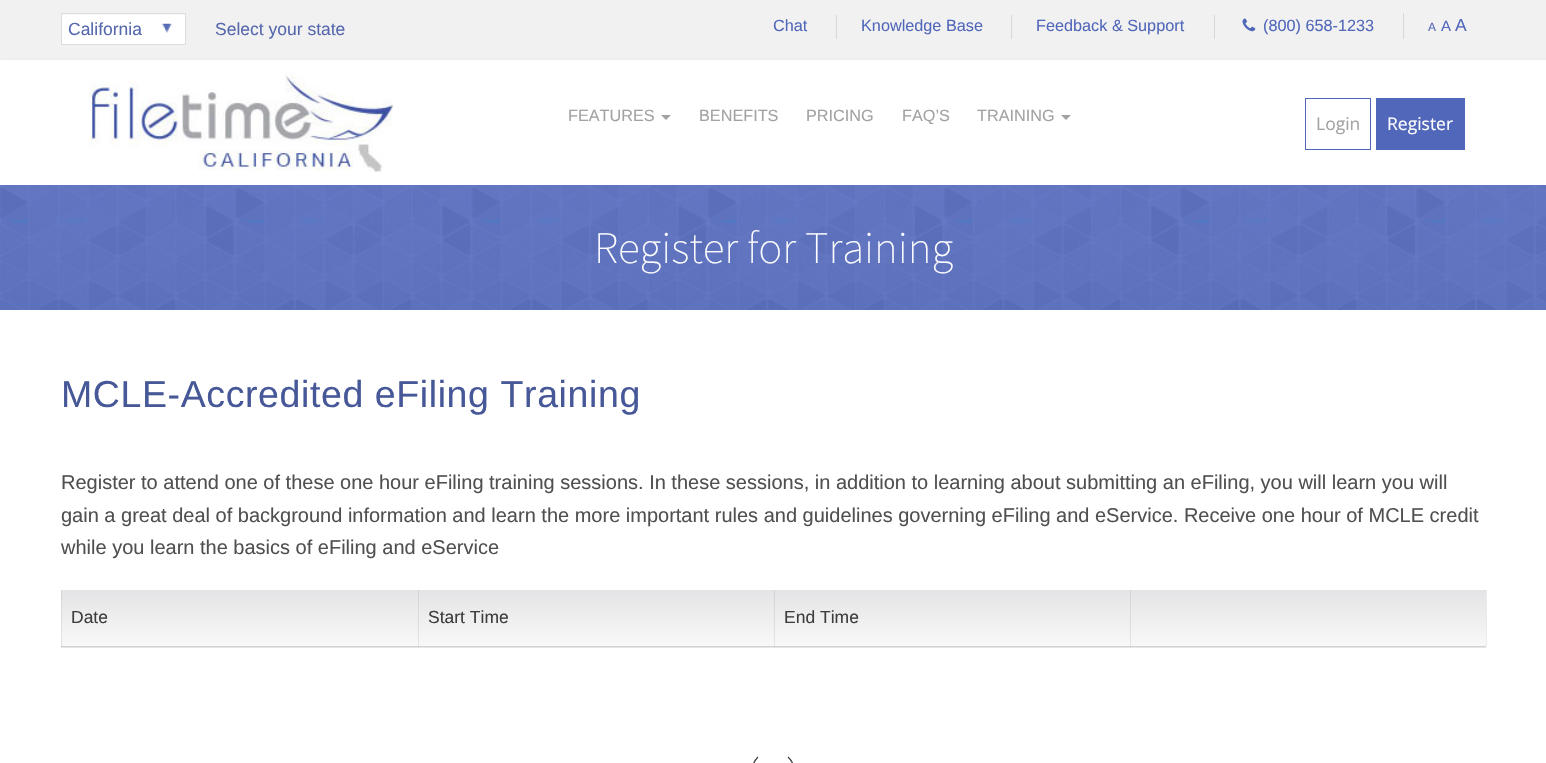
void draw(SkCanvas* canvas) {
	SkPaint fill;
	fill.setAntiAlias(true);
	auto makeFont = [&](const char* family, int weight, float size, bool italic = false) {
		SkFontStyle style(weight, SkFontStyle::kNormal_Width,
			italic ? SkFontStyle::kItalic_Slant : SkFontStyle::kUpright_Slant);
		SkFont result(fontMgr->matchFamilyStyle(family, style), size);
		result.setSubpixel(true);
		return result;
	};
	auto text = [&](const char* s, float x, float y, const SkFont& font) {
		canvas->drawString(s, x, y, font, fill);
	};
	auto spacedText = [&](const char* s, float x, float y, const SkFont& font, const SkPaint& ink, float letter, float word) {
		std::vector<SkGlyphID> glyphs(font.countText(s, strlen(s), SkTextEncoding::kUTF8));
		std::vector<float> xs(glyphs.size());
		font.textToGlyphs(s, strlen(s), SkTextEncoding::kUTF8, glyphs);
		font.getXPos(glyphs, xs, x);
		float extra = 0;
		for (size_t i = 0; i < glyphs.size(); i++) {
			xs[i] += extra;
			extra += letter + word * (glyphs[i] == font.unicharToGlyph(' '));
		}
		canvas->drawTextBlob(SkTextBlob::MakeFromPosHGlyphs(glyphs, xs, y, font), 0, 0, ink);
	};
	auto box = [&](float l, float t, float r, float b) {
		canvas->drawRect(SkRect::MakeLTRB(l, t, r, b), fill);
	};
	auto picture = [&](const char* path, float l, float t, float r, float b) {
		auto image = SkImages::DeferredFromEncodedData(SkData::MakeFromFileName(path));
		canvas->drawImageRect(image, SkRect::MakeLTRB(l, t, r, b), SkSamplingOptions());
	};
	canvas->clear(0xFFFFFFFF);
	fill.setColor(0xFFF1F1F1);
	box(0, 0, 1546, 60);
	fill.setColor(0xFFFFFFFF);
	box(62, 14, 185, 44);
	picture("image0.png", 162, 23, 172, 33);
	fill.setColor(0xFFF7F7F7);
	box(63, 14, 185, 15);
	fill.setStyle(SkPaint::kStroke_Style);
	fill.setStrokeWidth(1);
	fill.setColor(0xFFDDDDDD);
	canvas->drawRect(SkRect::MakeLTRB(61.5f, 13.5f, 185.5f, 44.5f), fill);
	fill.setStyle(SkPaint::kFill_Style);
	fill.setColor(0xFFD8D8D8);
	box(836, 15, 837, 39);
	box(1011, 15, 1012, 39);
	box(1214, 15, 1215, 39);
	picture("image1.png", 1242, 18, 1256, 32);
	box(1403, 13, 1404, 39);
	canvas->save();
	canvas->clipRect(SkRect::MakeLTRB(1, 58, 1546, 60));
	fill.setColor(0xFFC6C6C6);
	fill.setMaskFilter(SkMaskFilter::MakeBlur(kNormal_SkBlurStyle, 2.5f));
	canvas->drawRect(SkRect::MakeLTRB(3, 63, 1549, 188), fill);
	fill.setMaskFilter(nullptr);
	canvas->restore();
	picture("image2.png", 89, 72, 393, 172);
	fill.setColor(0xFFA2A2A2);
	canvas->drawPath(SkPathBuilder().moveTo(661, 115).lineTo(671, 115).lineTo(666, 120).close().detach(), fill);
	canvas->drawPath(SkPathBuilder().moveTo(1061, 115).lineTo(1071, 115).lineTo(1066, 120).close().detach(), fill);
	fill.setStyle(SkPaint::kStroke_Style);
	fill.setColor(0xFF5167BA);
	canvas->drawRect(SkRect::MakeLTRB(1305.5f, 98.5f, 1370.5f, 149.5f), fill);
	fill.setStyle(SkPaint::kFill_Style);
	box(1376, 98, 1465, 150);
	picture("image3.png", 0, 185, 1546, 310);
	{
		const SkColor colors[] = {0xFFE4E4E6, 0xFFF8F8F8};
		const float stops[] = {0, 1};
		const SkPoint ends[] = {{774, 646}, {774, 703}};
		fill.setShader(SkGradientShader::MakeLinear(ends, colors, stops, 2, SkTileMode::kClamp));
		fill.setAlpha(255);
	}
	box(61, 647, 1486, 648);
	fill.setShader(nullptr);
	fill.setColor(0xFFD2D2D4);
	box(61, 646, 1486, 647);
	fill.setColor(0xFFEBEBEB);
	box(1486, 590, 1487, 646);
	{
		const SkColor colors[] = {0xFFE4E4E6, 0xFFF8F8F8};
		const float stops[] = {0, 1};
		const SkPoint ends[] = {{240, 590}, {240, 646}};
		fill.setShader(SkGradientShader::MakeLinear(ends, colors, stops, 2, SkTileMode::kClamp));
		fill.setAlpha(255);
	}
	box(61, 590, 418, 646);
	fill.setShader(nullptr);
	fill.setColor(0x14000000);
	canvas->drawPath(SkPathBuilder().moveTo(61, 648).lineTo(61, 590).lineTo(62, 590).lineTo(62, 646).close().detach(), fill);
	{
		const SkColor colors[] = {0xFFE4E4E6, 0xFFF8F8F8};
		const float stops[] = {0, 1};
		const SkPoint ends[] = {{596, 590}, {596, 646}};
		fill.setShader(SkGradientShader::MakeLinear(ends, colors, stops, 2, SkTileMode::kClamp));
		fill.setAlpha(255);
	}
	box(418, 590, 774, 646);
	fill.setShader(nullptr);
	fill.setColor(0x14000000);
	canvas->drawPath(SkPathBuilder().moveTo(418, 648).lineTo(418, 590).lineTo(419, 590).lineTo(419, 646).close().detach(), fill);
	{
		const SkColor colors[] = {0xFFE4E4E6, 0xFFF8F8F8};
		const float stops[] = {0, 1};
		const SkPoint ends[] = {{953, 590}, {953, 646}};
		fill.setShader(SkGradientShader::MakeLinear(ends, colors, stops, 2, SkTileMode::kClamp));
		fill.setAlpha(255);
	}
	box(774, 590, 1130, 646);
	fill.setShader(nullptr);
	fill.setColor(0x14000000);
	canvas->drawPath(SkPathBuilder().moveTo(774, 648).lineTo(774, 590).lineTo(775, 590).lineTo(775, 646).close().detach(), fill);
	{
		const SkColor colors[] = {0xFFE4E4E6, 0xFFF8F8F8};
		const float stops[] = {0, 1};
		const SkPoint ends[] = {{1309, 590}, {1309, 646}};
		fill.setShader(SkGradientShader::MakeLinear(ends, colors, stops, 2, SkTileMode::kClamp));
		fill.setAlpha(255);
	}
	box(1130, 590, 1486, 646);
	fill.setShader(nullptr);
	fill.setColor(0x14000000);
	canvas->drawPath(SkPathBuilder().moveTo(1130, 648).lineTo(1130, 590).lineTo(1131, 590).lineTo(1131, 646).close().detach(), fill);
	fill.setStyle(SkPaint::kStroke_Style);
	fill.setStrokeWidth(1.2f);
	fill.setColor(0xFF3D3D3D);
	canvas->drawPath(SkPathBuilder().moveTo(788, 757).cubicTo(796.5f, 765, 796.5f, 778.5f, 788, 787).moveTo(758, 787).cubicTo(750, 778.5f, 750, 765, 758, 757).detach(), fill);
	auto font1 = makeFont("Liberation Sans", 400, 17.5f);
	fill.setStyle(SkPaint::kFill_Style);
	fill.setColor(0xFF5568AD);
	text("California", 68, 35, font1);
	text("Select your state", 215, 35, font1);
	auto font2 = makeFont("Liberation Sans", 400, 16.25f);
	fill.setColor(0xFF5167BA);
	text("Chat", 773, 31, font2);
	text("Knowledge Base", 861, 31, font2);
	text("Feedback & Support", 1036, 31, font2);
	text("(800) 658-1233", 1263, 31, font2);
	auto font3 = makeFont("Liberation Sans", 400, 12);
	text("A", 1428, 31, font3);
	auto font4 = makeFont("Liberation Sans", 400, 15);
	text("A", 1441, 31, font4);
	text("A", 1455, 31, font1);
	fill.setColor(0xFFA2A2A2);
	text("FEATURES", 568, 121, font2);
	text("BENEFITS", 699, 121, font2);
	text("PRICING", 806, 121, font2);
	text("FAQ’S", 902, 121, font2);
	text("TRAINING", 977, 121, font2);
	auto font5 = makeFont("Open Sans", 400, 17.5f);
	text("Login", 1316, 130, font5);
	fill.setColor(0xFFFFFFFF);
	text("Register", 1387, 130, font5);
	auto font6 = makeFont("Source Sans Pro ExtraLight", 200, 45);
	text("Register for Training", 594, 263, font6);
	auto font7 = makeFont("Liberation Sans", 400, 37.5f);
	fill.setColor(0xFF475898);
	spacedText("MCLE-Accredited eFiling Training", 61, 407, font7, fill, 0.6f, 0);
	auto font8 = makeFont("Liberation Sans", 400, 20);
	fill.setColor(0xFF505050);
	text("Register to attend one of these one hour eFiling training sessions. In these sessions, in addition to learning about submitting an eFiling, you will learn you will", 61, 489, font8);
	text("gain a great deal of background information and learn the more important rules and guidelines governing eFiling and eService. Receive one hour of MCLE credit", 61, 522, font8);
	text("while you learn the basics of eFiling and eService", 61, 554, font8);
	fill.setColor(0xFF3D3D3D);
	text("Date", 71, 623, font1);
	text("Start Time", 428, 623, font1);
	text("End Time", 784, 623, font1);
}
